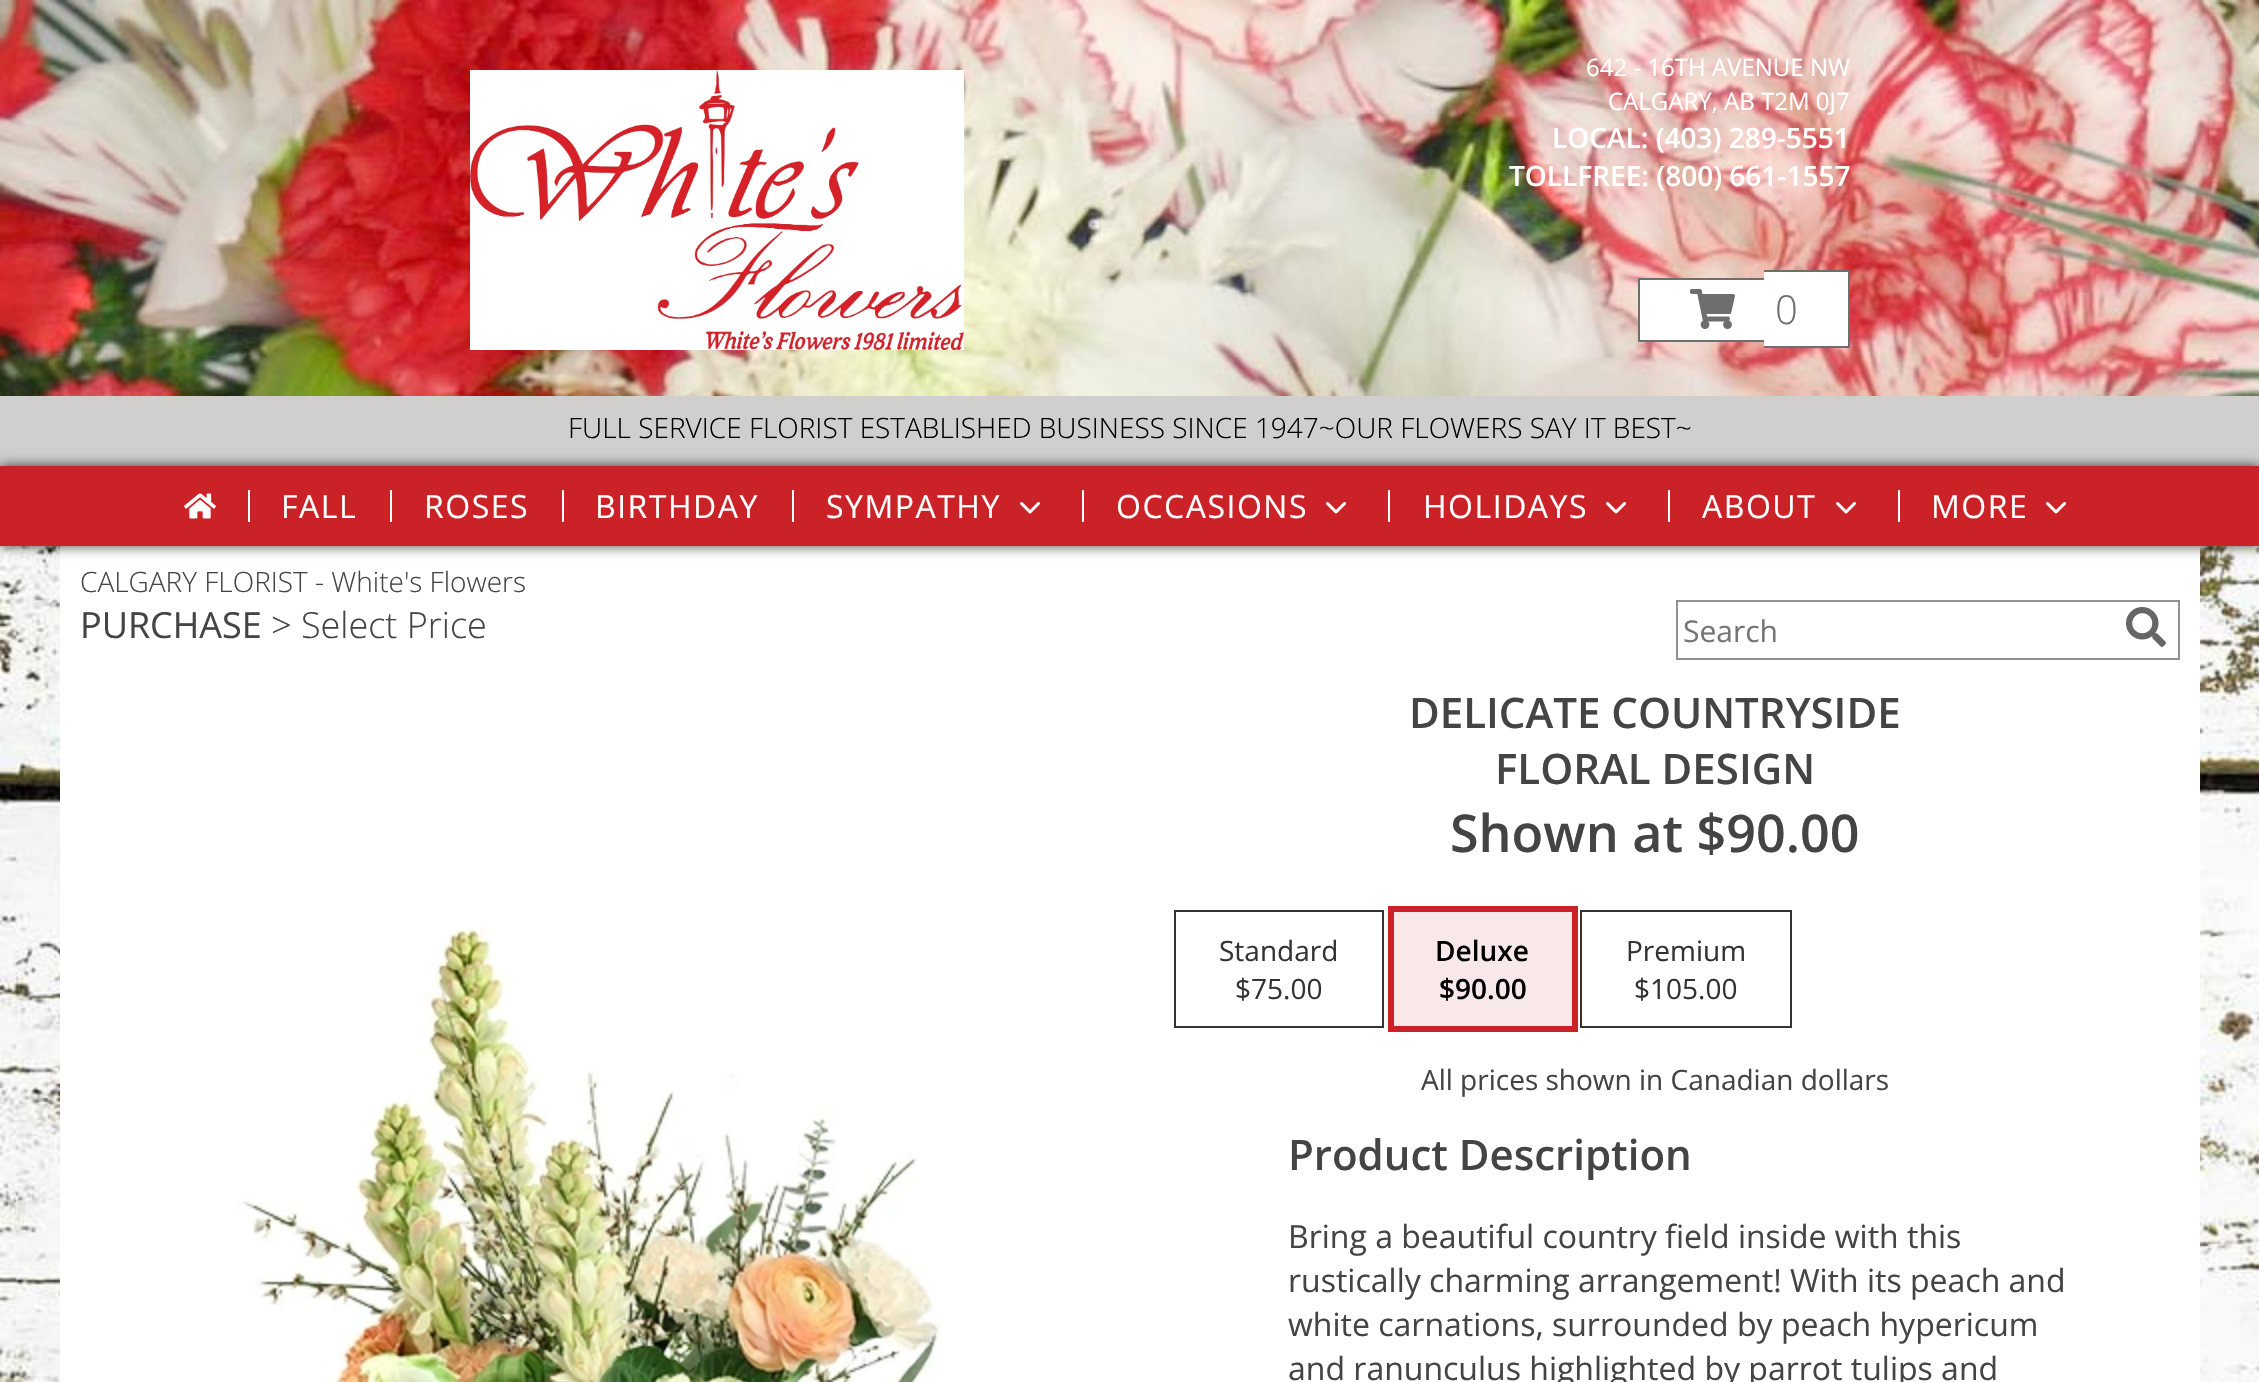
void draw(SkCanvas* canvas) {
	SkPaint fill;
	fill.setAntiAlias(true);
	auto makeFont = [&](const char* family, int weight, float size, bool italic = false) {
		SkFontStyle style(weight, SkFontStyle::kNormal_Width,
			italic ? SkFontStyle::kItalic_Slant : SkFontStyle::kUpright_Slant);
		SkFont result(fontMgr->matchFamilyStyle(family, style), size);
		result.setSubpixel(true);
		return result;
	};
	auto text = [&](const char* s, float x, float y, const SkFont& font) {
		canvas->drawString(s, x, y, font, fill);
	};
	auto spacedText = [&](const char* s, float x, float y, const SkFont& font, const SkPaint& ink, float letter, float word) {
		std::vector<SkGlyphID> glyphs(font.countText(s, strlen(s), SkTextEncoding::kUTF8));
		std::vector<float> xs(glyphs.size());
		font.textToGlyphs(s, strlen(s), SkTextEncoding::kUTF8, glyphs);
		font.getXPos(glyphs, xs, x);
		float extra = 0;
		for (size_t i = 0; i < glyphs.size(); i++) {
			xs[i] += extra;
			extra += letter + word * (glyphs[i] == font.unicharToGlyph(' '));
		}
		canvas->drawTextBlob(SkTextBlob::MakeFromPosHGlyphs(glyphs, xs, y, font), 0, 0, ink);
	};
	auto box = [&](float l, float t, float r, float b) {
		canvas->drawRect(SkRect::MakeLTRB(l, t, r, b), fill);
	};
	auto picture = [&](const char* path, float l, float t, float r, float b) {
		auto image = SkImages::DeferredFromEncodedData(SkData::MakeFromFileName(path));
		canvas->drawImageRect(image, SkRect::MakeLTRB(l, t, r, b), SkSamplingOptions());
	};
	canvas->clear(0xFFFFFFFF);
	picture("image0.png", 0, 546, 2259, 1382);
	fill.setColor(0xFFFFFFFF);
	box(60, 546, 2200, 1382);
	picture("image1.png", 0, 0, 2259, 396);
	picture("image2.png", 470, 70, 964, 350);
	box(1640, 280, 1764, 340);
	fill.setColor(0xFF6E6E6E);
	box(1638, 278, 1764, 280);
	box(1638, 340, 1764, 342);
	box(1638, 278, 1640, 342);
	fill.setColor(0xFFFFFFFF);
	box(1764, 272, 1848, 346);
	fill.setColor(0xFF6E6E6E);
	box(1764, 270, 1850, 272);
	box(1764, 346, 1776, 348);
	box(1848, 270, 1850, 348);
	box(1776, 346, 1850, 348);
	picture("image3.png", 1690, 289, 1735, 329);
	fill.setColor(0xFFD0CFCD);
	box(0, 396, 2259, 466);
	fill.setColor(0xBF000000);
	fill.setMaskFilter(SkMaskFilter::MakeBlur(kNormal_SkBlurStyle, 6));
	canvas->drawRect(SkRect::MakeLTRB(0, 466, 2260, 546), fill);
	fill.setMaskFilter(nullptr);
	fill.setColor(0xFFCB2227);
	box(0, 466, 2259, 546);
	picture("image4.png", 184, 493, 216, 519);
	fill.setColor(0xFFFFFFFF);
	box(248, 490, 250, 522);
	box(390, 490, 392, 522);
	box(562, 490, 564, 522);
	box(792, 490, 794, 522);
	picture("image5.png", 1020, 502, 1040, 514);
	box(1082, 490, 1084, 522);
	picture("image5.png", 1326, 502, 1346, 514);
	box(1388, 490, 1390, 522);
	picture("image5.png", 1606, 502, 1626, 514);
	box(1668, 490, 1670, 522);
	picture("image5.png", 1836, 502, 1856, 514);
	box(1898, 490, 1900, 522);
	picture("image5.png", 2046, 502, 2066, 514);
	fill.setStyle(SkPaint::kStroke_Style);
	fill.setStrokeWidth(2);
	fill.setColor(0xFF919191);
	canvas->drawRect(SkRect::MakeLTRB(1677, 601, 2179, 659), fill);
	picture("image6.png", 2126, 607, 2166, 647);
	picture("image7.png", 236, 928, 941, 1382);
	fill.setColor(0xFF333333);
	canvas->drawRect(SkRect::MakeLTRB(1175, 911, 1383, 1027), fill);
	fill.setStrokeWidth(6);
	fill.setColor(0xFFCB2227);
	canvas->drawRect(SkRect::MakeLTRB(1391, 909, 1575, 1029), fill);
	fill.setStyle(SkPaint::kFill_Style);
	fill.setColor(0xFFF9E8E9);
	box(1394, 912, 1572, 1026);
	fill.setStyle(SkPaint::kStroke_Style);
	fill.setStrokeWidth(2);
	fill.setColor(0xFF333333);
	canvas->drawRect(SkRect::MakeLTRB(1581, 911, 1791, 1027), fill);
	auto font1 = makeFont("Open Sans", 400, 24);
	fill.setStyle(SkPaint::kFill_Style);
	fill.setColor(0xFFFFFFFF);
	text("642 - 16TH AVENUE NW", 1586, 76, font1);
	text("CALGARY, AB T2M 0J7", 1608, 110, font1);
	auto font2 = makeFont("Open Sans", 600, 28);
	text("LOCAL: (403) 289-5551", 1552, 148, font2);
	text("TOLLFREE: (800) 661-1557", 1509, 186, font2);
	auto font3 = makeFont("Open Sans", 300, 40);
	fill.setColor(0xFF6E6E6E);
	text("0", 1775, 324, font3);
	auto font4 = makeFont("Open Sans", 300, 28);
	fill.setColor(0xFF000000);
	text("FULL SERVICE FLORIST ESTABLISHED BUSINESS SINCE 1947~OUR FLOWERS SAY IT BEST~", 568, 438, font4);
	auto font5 = makeFont("Open Sans", 400, 32);
	fill.setColor(0xFFFFFFFF);
	spacedText("FALL", 281, 518, font5, fill, 1.5f, 0);
	spacedText("ROSES", 424, 518, font5, fill, 1.5f, 0);
	spacedText("BIRTHDAY", 595, 518, font5, fill, 1.5f, 0);
	spacedText("SYMPATHY", 826, 518, font5, fill, 1.5f, 0);
	spacedText("OCCASIONS", 1116, 518, font5, fill, 1.5f, 0);
	spacedText("HOLIDAYS", 1423, 518, font5, fill, 1.5f, 0);
	spacedText("ABOUT", 1702, 518, font5, fill, 1.5f, 0);
	spacedText("MORE", 1931, 518, font5, fill, 1.5f, 0);
	fill.setColor(0xFF444444);
	text("CALGARY FLORIST - White's Flowers", 80, 592, font4);
	auto font6 = makeFont("Open Sans", 400, 36);
	text("PURCHASE", 80, 638, font6);
	auto font7 = makeFont("Open Sans", 300, 36);
	text("> Select Price", 271, 638, font7);
	auto font8 = makeFont("Open Sans", 400, 30);
	fill.setColor(0xFF757575);
	text("Search", 1683, 642, font8);
	auto font9 = makeFont("Open Sans", 600, 42);
	fill.setColor(0xFF444444);
	text("DELICATE COUNTRYSIDE", 1409, 728, font9);
	text("FLORAL DESIGN", 1495, 784, font9);
	auto font10 = makeFont("Open Sans", 600, 52);
	text("Shown at $90.00", 1450, 852, font10);
	auto font11 = makeFont("Open Sans", 400, 28);
	fill.setColor(0xFF333333);
	text("Standard", 1219, 961, font11);
	text("$75.00", 1235, 999, font11);
	fill.setColor(0xFF000000);
	text("Deluxe", 1435, 961, font2);
	text("$90.00", 1439, 999, font2);
	fill.setColor(0xFF333333);
	text("Premium", 1626, 961, font11);
	text("$105.00", 1634, 999, font11);
	fill.setColor(0xFF444444);
	text("All prices shown in Canadian dollars", 1421, 1090, font11);
	text("Product Description", 1288, 1170, font9);
	text("Bring a beautiful country field inside with this", 1288, 1248, font5);
	text("rustically charming arrangement! With its peach and", 1288, 1292, font5);
	text("white carnations, surrounded by peach hypericum", 1288, 1336, font5);
	text("and ranunculus highlighted by parrot tulips and", 1288, 1380, font5);
}
